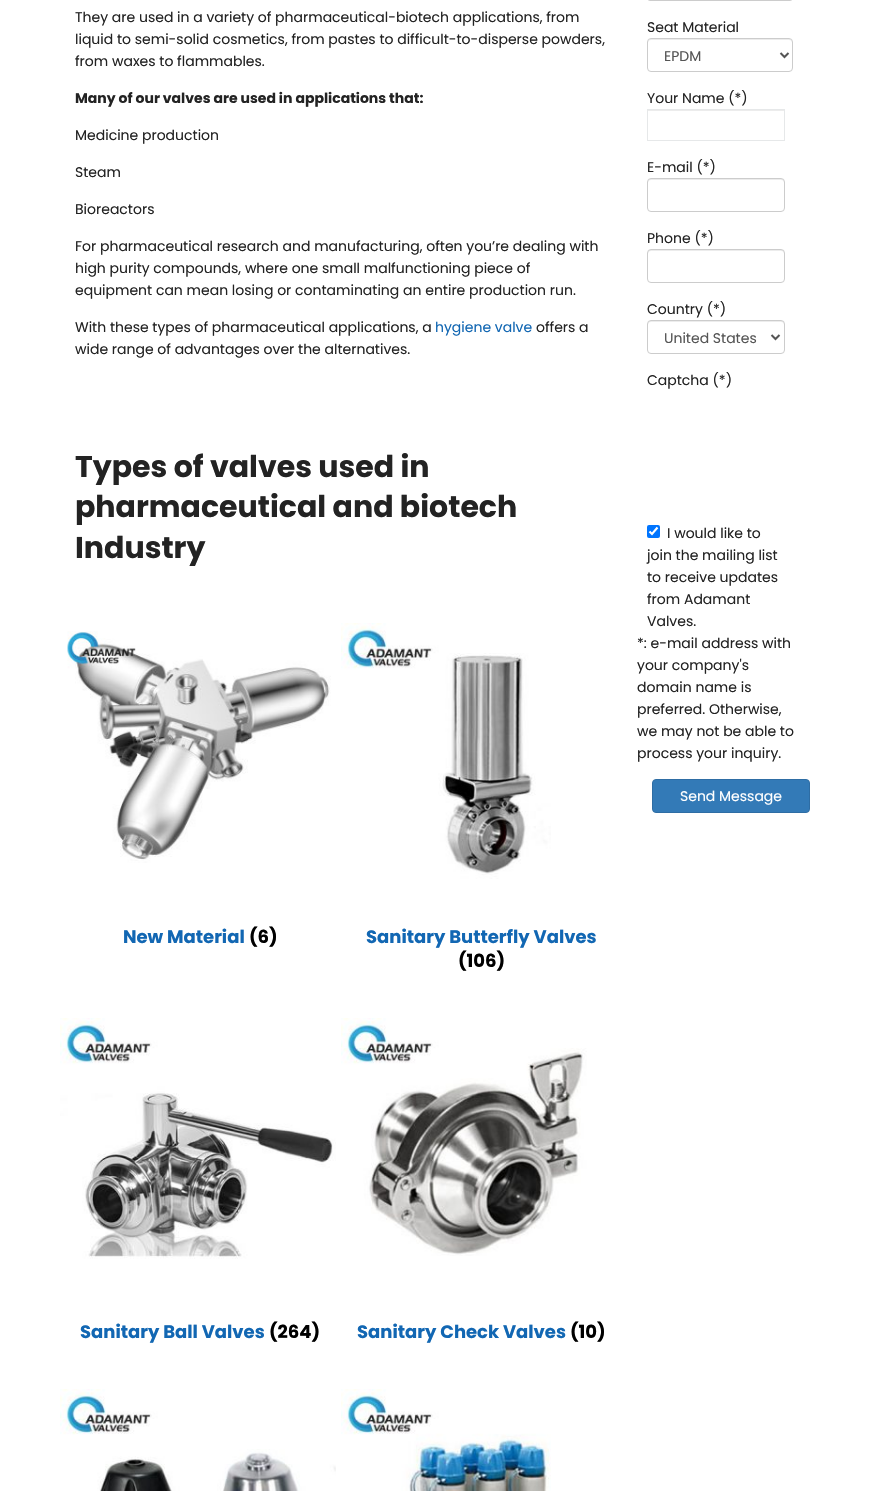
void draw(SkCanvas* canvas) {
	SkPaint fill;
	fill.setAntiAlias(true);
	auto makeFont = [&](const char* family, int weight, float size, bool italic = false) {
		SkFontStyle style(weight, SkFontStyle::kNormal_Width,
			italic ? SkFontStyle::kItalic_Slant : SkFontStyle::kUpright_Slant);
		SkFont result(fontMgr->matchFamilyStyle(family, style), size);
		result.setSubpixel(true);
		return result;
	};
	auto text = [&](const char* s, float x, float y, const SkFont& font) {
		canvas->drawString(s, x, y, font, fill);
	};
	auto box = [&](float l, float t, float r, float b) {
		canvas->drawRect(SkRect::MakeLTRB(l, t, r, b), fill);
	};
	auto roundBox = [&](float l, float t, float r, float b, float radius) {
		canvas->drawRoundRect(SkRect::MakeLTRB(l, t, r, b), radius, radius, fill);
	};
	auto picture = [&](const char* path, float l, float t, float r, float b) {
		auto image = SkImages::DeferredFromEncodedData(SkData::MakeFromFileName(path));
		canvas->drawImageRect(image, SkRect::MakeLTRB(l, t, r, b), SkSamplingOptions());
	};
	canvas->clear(0xFFFFFFFF);
	picture("image0.png", 67, 631, 331, 863);
	picture("image1.png", 341, 623, 551, 879);
	picture("image2.png", 60, 1018, 336, 1259);
	picture("image3.png", 341, 1018, 587, 1256);
	picture("image4.png", 60, 1389, 336, 1491);
	picture("image5.png", 341, 1389, 551, 1491);
	fill.setStyle(SkPaint::kStroke_Style);
	fill.setStrokeWidth(1);
	fill.setColor(0xFFCCCCCC);
	canvas->drawRoundRect(SkRect::MakeLTRB(647.5f, -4.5f, 792.5f, 0.5f), 3.5f, 3.5f, fill);
	fill.setStyle(SkPaint::kFill_Style);
	fill.setColor(0xFFECECEC);
	canvas->drawPath(SkPathBuilder().moveTo(651, 40).lineTo(789, 40).cubicTo(791, 40, 792, 41, 792, 43).lineTo(792, 42).cubicTo(792, 40, 791, 39, 789, 39).lineTo(651, 39).cubicTo(649, 39, 648, 40, 648, 42).lineTo(648, 43).cubicTo(648, 41, 649, 40, 651, 40).close().detach(), fill);
	fill.setStyle(SkPaint::kStroke_Style);
	fill.setColor(0xFFCCCCCC);
	canvas->drawRoundRect(SkRect::MakeLTRB(647.5f, 38.5f, 792.5f, 71.5f), 3.5f, 3.5f, fill);
	fill.setStrokeWidth(2);
	fill.setColor(0xFF555555);
	canvas->drawPath(SkPathBuilder().moveTo(780.5f, 53).lineTo(784.5f, 57).lineTo(788.5f, 53).detach(), fill);
	fill.setStyle(SkPaint::kFill_Style);
	fill.setColor(0xFFECECEC);
	box(648, 110, 784, 111);
	fill.setStyle(SkPaint::kStroke_Style);
	fill.setStrokeWidth(1);
	fill.setColor(0xFFE6E8E9);
	canvas->drawRect(SkRect::MakeLTRB(647.5f, 109.5f, 784.5f, 140.5f), fill);
	fill.setStyle(SkPaint::kFill_Style);
	fill.setColor(0xFFECECEC);
	canvas->drawPath(SkPathBuilder().moveTo(651, 180).lineTo(781, 180).cubicTo(783, 180, 784, 181, 784, 183).cubicTo(784, 181, 784, 179, 782, 179).lineTo(650, 179).cubicTo(648, 179, 648, 181, 648, 183).cubicTo(648, 181, 649, 180, 651, 180).close().detach(), fill);
	fill.setStyle(SkPaint::kStroke_Style);
	fill.setColor(0xFFCCCCCC);
	canvas->drawRoundRect(SkRect::MakeLTRB(647.5f, 178.5f, 784.5f, 211.5f), 3.5f, 3.5f, fill);
	fill.setStyle(SkPaint::kFill_Style);
	fill.setColor(0xFFECECEC);
	canvas->drawPath(SkPathBuilder().moveTo(651, 251).lineTo(781, 251).cubicTo(783, 251, 784, 252, 784, 254).cubicTo(784, 252, 784, 250, 782, 250).lineTo(650, 250).cubicTo(648, 250, 648, 252, 648, 254).cubicTo(648, 252, 649, 251, 651, 251).close().detach(), fill);
	fill.setStyle(SkPaint::kStroke_Style);
	fill.setColor(0xFFCCCCCC);
	canvas->drawRoundRect(SkRect::MakeLTRB(647.5f, 249.5f, 784.5f, 282.5f), 3.5f, 3.5f, fill);
	fill.setStyle(SkPaint::kFill_Style);
	fill.setColor(0xFFECECEC);
	canvas->drawPath(SkPathBuilder().moveTo(651, 322).lineTo(781, 322).cubicTo(783, 322, 784, 323, 784, 325).cubicTo(784, 323, 784, 321, 782, 321).lineTo(650, 321).cubicTo(648, 321, 648, 323, 648, 325).cubicTo(648, 323, 649, 322, 651, 322).close().detach(), fill);
	fill.setStyle(SkPaint::kStroke_Style);
	fill.setColor(0xFFCCCCCC);
	canvas->drawRoundRect(SkRect::MakeLTRB(647.5f, 320.5f, 784.5f, 353.5f), 3.5f, 3.5f, fill);
	fill.setStrokeWidth(2);
	fill.setColor(0xFF555555);
	canvas->drawPath(SkPathBuilder().moveTo(771.5f, 335).lineTo(775.5f, 339).lineTo(779.5f, 335).detach(), fill);
	fill.setStyle(SkPaint::kFill_Style);
	fill.setColor(0xFF0075FF);
	roundBox(647, 525, 660, 538, 2);
	fill.setStyle(SkPaint::kStroke_Style);
	fill.setStrokeWidth(2.1f);
	fill.setColor(0xFFFFFFFF);
	canvas->drawPath(SkPathBuilder().moveTo(649.5f, 531.5f).lineTo(652, 534).lineTo(657.5f, 527.5f).detach(), fill);
	fill.setStyle(SkPaint::kFill_Style);
	fill.setColor(0xFF337AB7);
	canvas->drawRoundRect(SkRect::MakeLTRB(652.5f, 779.5f, 809.5f, 812.5f), 3.5f, 3.5f, fill);
	fill.setStyle(SkPaint::kStroke_Style);
	fill.setStrokeWidth(1);
	fill.setColor(0xFF2E6DA4);
	canvas->drawRoundRect(SkRect::MakeLTRB(652.5f, 779.5f, 809.5f, 812.5f), 3.5f, 3.5f, fill);
	auto font1 = makeFont("Poppins", 400, 14);
	fill.setStyle(SkPaint::kFill_Style);
	fill.setColor(0xFF232323);
	text("They are used in a variety of pharmaceutical-biotech applications, from", 75, 22, font1);
	text("liquid to semi-solid cosmetics, from pastes to difficult-to-disperse powders,", 75, 44, font1);
	text("from waxes to flammables.", 75, 66, font1);
	auto font2 = makeFont("Poppins", 700, 14);
	text("Many of our valves are used in applications that:", 75, 103, font2);
	text("Medicine production", 75, 140, font1);
	text("Steam", 75, 177, font1);
	text("Bioreactors", 75, 214, font1);
	text("For pharmaceutical research and manufacturing, often you’re dealing with", 75, 251, font1);
	text("high purity compounds, where one small malfunctioning piece of", 75, 273, font1);
	text("equipment can mean losing or contaminating an entire production run.", 75, 295, font1);
	text("With these types of pharmaceutical applications, a", 75, 332, font1);
	fill.setColor(0xFF1267B3);
	text("hygiene valve", 435, 332, font1);
	fill.setColor(0xFF232323);
	text("offers a", 536, 332, font1);
	text("wide range of advantages over the alternatives.", 75, 354, font1);
	auto font3 = makeFont("Poppins", 700, 30);
	text("Types of valves used in", 75, 477, font3);
	text("pharmaceutical and biotech", 75, 517, font3);
	text("Industry", 75, 558, font3);
	auto font4 = makeFont("Poppins", 700, 18);
	fill.setColor(0xFF1267B3);
	text("New Material", 123, 943, font4);
	fill.setColor(0xFF000000);
	text("(6)", 249, 943, font4);
	fill.setColor(0xFF1267B3);
	text("Sanitary Butterfly Valves", 366, 943, font4);
	fill.setColor(0xFF000000);
	text("(106)", 458, 967, font4);
	fill.setColor(0xFF1267B3);
	text("Sanitary Ball Valves", 80, 1338, font4);
	fill.setColor(0xFF000000);
	text("(264)", 269, 1338, font4);
	fill.setColor(0xFF1267B3);
	text("Sanitary Check Valves", 357, 1338, font4);
	fill.setColor(0xFF000000);
	text("(10)", 570, 1338, font4);
	fill.setColor(0xFF232323);
	text("Seat Material", 647, 32, font1);
	fill.setColor(0xFF555555);
	text("EPDM", 664, 61, font1);
	fill.setColor(0xFF232323);
	text("Your Name (*)", 647, 103, font1);
	text("E-mail (*)", 647, 172, font1);
	text("Phone (*)", 647, 243, font1);
	text("Country (*)", 647, 314, font1);
	fill.setColor(0xFF555555);
	text("United States", 664, 343, font1);
	fill.setColor(0xFF232323);
	text("Captcha (*)", 647, 385, font1);
	text("I would like to", 667, 538, font1);
	text("join the mailing list", 647, 560, font1);
	text("to receive updates", 647, 582, font1);
	text("from Adamant", 647, 604, font1);
	text("Valves.", 647, 626, font1);
	text("*: e-mail address with", 637, 648, font1);
	text("your company's", 637, 670, font1);
	text("domain name is", 637, 692, font1);
	text("preferred. Otherwise,", 637, 714, font1);
	text("we may not be able to", 637, 736, font1);
	text("process your inquiry.", 637, 758, font1);
	fill.setColor(0xFFFFFFFF);
	text("Send Message", 680, 801, font1);
}
